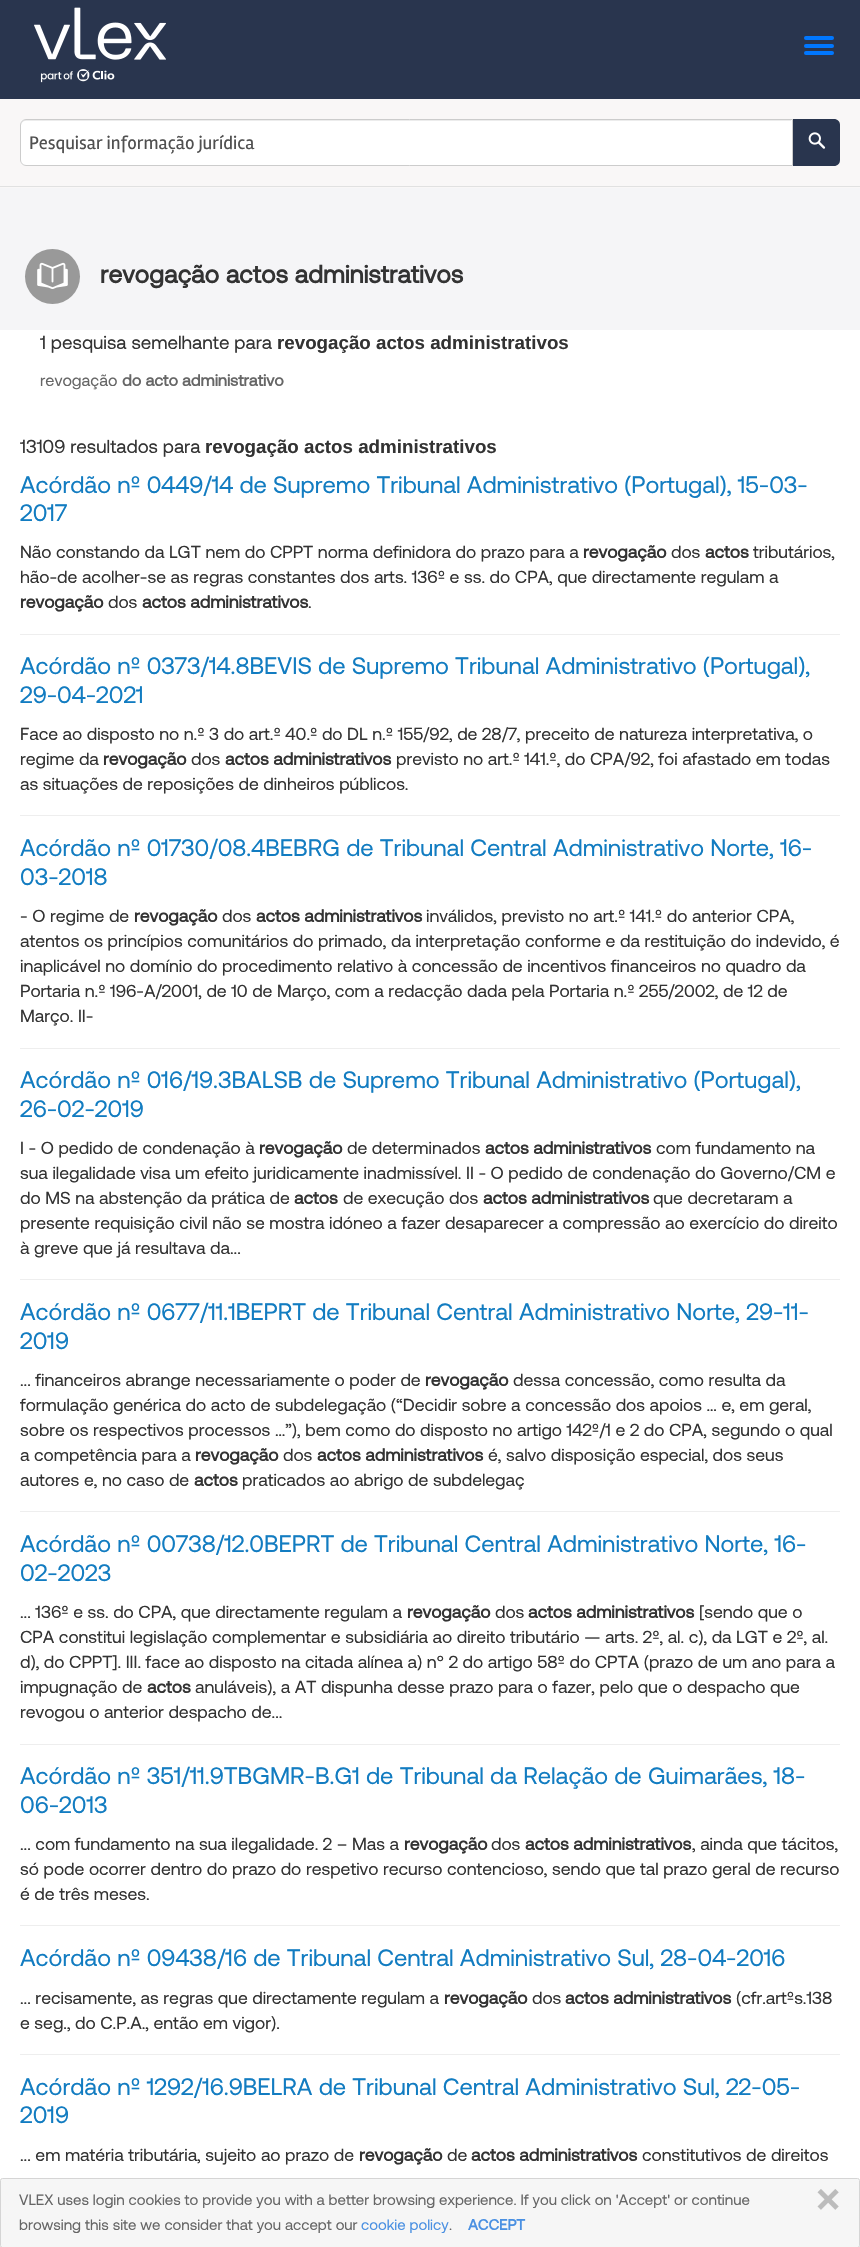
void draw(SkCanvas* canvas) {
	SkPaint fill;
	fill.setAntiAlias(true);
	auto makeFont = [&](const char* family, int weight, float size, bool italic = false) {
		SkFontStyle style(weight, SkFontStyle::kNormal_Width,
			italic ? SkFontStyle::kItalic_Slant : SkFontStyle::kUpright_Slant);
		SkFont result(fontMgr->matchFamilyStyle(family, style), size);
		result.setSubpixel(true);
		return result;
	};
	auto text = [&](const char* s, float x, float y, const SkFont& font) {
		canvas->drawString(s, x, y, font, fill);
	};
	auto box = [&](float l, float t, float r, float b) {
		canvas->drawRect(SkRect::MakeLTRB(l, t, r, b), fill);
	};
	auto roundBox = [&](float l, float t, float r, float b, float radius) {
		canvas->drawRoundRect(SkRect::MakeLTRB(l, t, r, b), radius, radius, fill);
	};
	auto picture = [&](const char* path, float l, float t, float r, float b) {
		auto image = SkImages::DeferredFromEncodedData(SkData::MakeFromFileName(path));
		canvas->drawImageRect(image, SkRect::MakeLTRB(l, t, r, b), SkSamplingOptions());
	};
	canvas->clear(0xFFF5F5F7);
	fill.setColor(0xFF29354E);
	box(0, 0, 860, 99);
	picture("image0.png", 34, 7, 166, 83);
	fill.setColor(0xFF0077FF);
	roundBox(804, 44, 834, 48, 2);
	roundBox(804, 36, 834, 40, 2);
	roundBox(804, 51, 834, 55, 2);
	fill.setColor(0xFFF9F7F7);
	box(0, 99, 860, 188);
	fill.setColor(0xFFE1E1E1);
	box(0, 186, 860, 187);
	fill.setColor(0xFFFFFFFF);
	canvas->drawPath(SkPathBuilder().moveTo(26, 119).lineTo(793, 119).lineTo(793, 166).lineTo(26, 166).cubicTo(22.5f, 166, 20, 163.5f, 20, 160).lineTo(20, 125).cubicTo(20, 121.5f, 22.5f, 119, 26, 119).close().detach(), fill);
	fill.setColor(0xFFECECEC);
	canvas->drawPath(SkPathBuilder().moveTo(26, 121).lineTo(791, 121).lineTo(791, 120).lineTo(26, 120).cubicTo(23, 120, 21, 122, 21, 125).lineTo(21, 126).cubicTo(21, 123, 23, 121, 26, 121).close().detach(), fill);
	fill.setStyle(SkPaint::kStroke_Style);
	fill.setStrokeWidth(1);
	fill.setColor(0xFFCCCCCC);
	canvas->drawPath(SkPathBuilder().moveTo(26, 119.5f).lineTo(792.5f, 119.5f).lineTo(792.5f, 165.5f).lineTo(26, 165.5f).cubicTo(23, 165.5f, 20.5f, 163, 20.5f, 160).lineTo(20.5f, 125).cubicTo(20.5f, 122, 23, 119.5f, 26, 119.5f).close().detach(), fill);
	fill.setStyle(SkPaint::kFill_Style);
	fill.setColor(0xFF29354E);
	canvas->drawPath(SkPathBuilder().moveTo(793, 119).lineTo(834, 119).cubicTo(837.5f, 119, 840, 121.5f, 840, 125).lineTo(840, 160).cubicTo(840, 163.5f, 837.5f, 166, 834, 166).lineTo(793, 166).close().detach(), fill);
	picture("image1.png", 808, 132, 826, 149);
	fill.setColor(0xFF999999);
	canvas->drawCircle(52.5f, 276.5f, 27.5f, fill);
	picture("image2.png", 37, 262, 68, 289);
	fill.setColor(0xFFFFFFFF);
	box(0, 330, 860, 2247);
	fill.setColor(0xFFEEEEEE);
	box(20, 634, 840, 635);
	box(20, 815, 840, 816);
	box(20, 1048, 840, 1049);
	box(20, 1279, 840, 1280);
	box(20, 1511, 840, 1512);
	box(20, 1744, 840, 1745);
	box(20, 1925, 840, 1926);
	box(20, 2054, 840, 2055);
	fill.setColor(0xFFF6F6F6);
	canvas->drawRoundRect(SkRect::MakeLTRB(0.5f, 2178.5f, 859.5f, 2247.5f), 2, 2, fill);
	fill.setStyle(SkPaint::kStroke_Style);
	fill.setColor(0xFFD5D5D5);
	canvas->drawRoundRect(SkRect::MakeLTRB(0.5f, 2178.5f, 859.5f, 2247.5f), 2, 2, fill);
	picture("image3.png", 817, 2189, 839, 2210);
	auto font1 = makeFont("Rambla", 400, 18.75f);
	fill.setStyle(SkPaint::kFill_Style);
	fill.setColor(0xFF505050);
	text("Pesquisar informação jurídica", 29, 149, font1);
	auto font2 = makeFont("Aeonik", 700, 25);
	fill.setColor(0xFF333333);
	text("revogação actos administrativos", 100, 283, font2);
	auto font3 = makeFont("Aeonik", 400, 18.75f);
	text("1 pesquisa semelhante para", 40, 349, font3);
	auto font4 = makeFont("Liberation Sans", 700, 18.75f);
	text("revogação actos administrativos", 277, 349, font4);
	auto font5 = makeFont("Aeonik", 400, 16.25f);
	fill.setColor(0xFF666666);
	text("revogação", 40, 386, font5);
	auto font6 = makeFont("Aeonik", 700, 16.25f);
	text("do acto administrativo", 122, 386, font6);
	fill.setColor(0xFF333333);
	text("13109 resultados para", 20, 453, font3);
	text("revogação actos administrativos", 205, 453, font4);
	auto font7 = makeFont("Aeonik", 400, 23.75f);
	fill.setColor(0xFF127CC1);
	text("Acórdão nº 0449/14 de Supremo Tribunal Administrativo (Portugal), 15-03-", 20, 493, font7);
	text("2017", 20, 521, font7);
	auto font8 = makeFont("Aeonik", 400, 17.5f);
	fill.setColor(0xFF333333);
	text("Não constando da LGT nem do CPPT norma definidora do prazo para a", 20, 558, font8);
	auto font9 = makeFont("Aeonik", 700, 17.5f);
	text("revogação", 583, 558, font9);
	text("dos", 671, 558, font8);
	text("actos", 705, 558, font9);
	text("tributários,", 753, 558, font8);
	text("hão-de acolher-se as regras constantes dos arts. 136º e ss. do CPA, que directamente regulam a", 20, 583, font8);
	text("revogação", 20, 608, font9);
	text("dos", 108, 608, font8);
	text("actos administrativos", 142, 608, font9);
	text(".", 308, 608, font8);
	fill.setColor(0xFF127CC1);
	text("Acórdão nº 0373/14.8BEVIS de Supremo Tribunal Administrativo (Portugal),", 20, 674, font7);
	text("29-04-2021", 20, 703, font7);
	fill.setColor(0xFF333333);
	text("Face ao disposto no n.º 3 do art.º 40.º do DL n.º 155/92, de 28/7, preceito de natureza interpretativa, o", 20, 740, font8);
	text("regime da", 20, 765, font8);
	text("revogação", 103, 765, font9);
	text("dos", 191, 765, font8);
	text("actos administrativos", 225, 765, font9);
	text("previsto no art.º 141.º, do CPA/92, foi afastado em todas", 396, 765, font8);
	text("as situações de reposições de dinheiros públicos.", 20, 790, font8);
	fill.setColor(0xFF127CC1);
	text("Acórdão nº 01730/08.4BEBRG de Tribunal Central Administrativo Norte, 16-", 20, 856, font7);
	text("03-2018", 20, 885, font7);
	fill.setColor(0xFF333333);
	text("- O regime de", 20, 922, font8);
	text("revogação", 134, 922, font9);
	text("dos", 222, 922, font8);
	text("actos administrativos", 256, 922, font9);
	text("inválidos, previsto no art.º 141.º do anterior CPA,", 426, 922, font8);
	text("atentos os princípios comunitários do primado, da interpretação conforme e da restituição do indevido, é", 20, 947, font8);
	text("inaplicável no domínio do procedimento relativo à concessão de incentivos financeiros no quadro da", 20, 972, font8);
	text("Portaria n.º 196-A/2001, de 10 de Março, com a redacção dada pela Portaria n.º 255/2002, de 12 de", 20, 997, font8);
	text("Março. II-", 20, 1022, font8);
	fill.setColor(0xFF127CC1);
	text("Acórdão nº 016/19.3BALSB de Supremo Tribunal Administrativo (Portugal),", 20, 1088, font7);
	text("26-02-2019", 20, 1117, font7);
	fill.setColor(0xFF333333);
	text("I - O pedido de condenação à", 20, 1154, font8);
	text("revogação", 259, 1154, font9);
	text("de determinados", 347, 1154, font8);
	text("actos administrativos", 485, 1154, font9);
	text("com fundamento na", 656, 1154, font8);
	text("sua ilegalidade visa um efeito juridicamente inadmissível. II - O pedido de condenação do Governo/CM e", 20, 1179, font8);
	text("do MS na abstenção da prática de", 20, 1204, font8);
	text("actos", 294, 1204, font9);
	text("de execução dos", 343, 1204, font8);
	text("actos administrativos", 483, 1204, font9);
	text("que decretaram a", 653, 1204, font8);
	text("presente requisição civil não se mostra idóneo a fazer desaparecer a compressão ao exercício do direito", 20, 1229, font8);
	text("à greve que já resultava da...", 20, 1254, font8);
	fill.setColor(0xFF127CC1);
	text("Acórdão nº 0677/11.1BEPRT de Tribunal Central Administrativo Norte, 29-11-", 20, 1320, font7);
	text("2019", 20, 1349, font7);
	fill.setColor(0xFF333333);
	text("... financeiros abrange necessariamente o poder de", 20, 1386, font8);
	text("revogação", 425, 1386, font9);
	text("dessa concessão, como resulta da", 513, 1386, font8);
	text("formulação genérica do acto de subdelegação (“Decidir sobre a concessão dos apoios … e, em geral,", 20, 1411, font8);
	text("sobre os respectivos processos …”), bem como do disposto no artigo 142º/1 e 2 do CPA, segundo o qual", 20, 1436, font8);
	text("a competência para a", 20, 1461, font8);
	text("revogação", 195, 1461, font9);
	text("dos", 283, 1461, font8);
	text("actos administrativos", 317, 1461, font9);
	text("é, salvo disposição especial, dos seus", 488, 1461, font8);
	text("autores e, no caso de", 20, 1486, font8);
	text("actos", 194, 1486, font9);
	text("praticados ao abrigo de subdelegaç", 242, 1486, font8);
	fill.setColor(0xFF127CC1);
	text("Acórdão nº 00738/12.0BEPRT de Tribunal Central Administrativo Norte, 16-", 20, 1552, font7);
	text("02-2023", 20, 1581, font7);
	fill.setColor(0xFF333333);
	text("... 136º e ss. do CPA, que directamente regulam a", 20, 1618, font8);
	text("revogação", 407, 1618, font9);
	text("dos", 495, 1618, font8);
	text("actos administrativos", 528, 1618, font9);
	text("[sendo que o", 699, 1618, font8);
	text("CPA constitui legislação complementar e subsidiária ao direito tributário — arts. 2º, al. c), da LGT e 2º, al.", 20, 1643, font8);
	text("d), do CPPT]. III. face ao disposto na citada alínea a) n° 2 do artigo 58º do CPTA (prazo de um ano para a", 20, 1668, font8);
	text("impugnação de", 20, 1693, font8);
	text("actos", 147, 1693, font9);
	text("anuláveis), a AT dispunha desse prazo para o fazer, pelo que o despacho que", 195, 1693, font8);
	text("revogou o anterior despacho de...", 20, 1718, font8);
	fill.setColor(0xFF127CC1);
	text("Acórdão nº 351/11.9TBGMR-B.G1 de Tribunal da Relação de Guimarães, 18-", 20, 1784, font7);
	text("06-2013", 20, 1813, font7);
	fill.setColor(0xFF333333);
	text("... com fundamento na sua ilegalidade. 2 – Mas a", 20, 1850, font8);
	text("revogação", 404, 1850, font9);
	text("dos", 491, 1850, font8);
	text("actos administrativos", 525, 1850, font9);
	text(", ainda que tácitos,", 692, 1850, font8);
	text("só pode ocorrer dentro do prazo do respetivo recurso contencioso, sendo que tal prazo geral de recurso", 20, 1875, font8);
	text("é de três meses.", 20, 1900, font8);
	fill.setColor(0xFF127CC1);
	text("Acórdão nº 09438/16 de Tribunal Central Administrativo Sul, 28-04-2016", 20, 1966, font7);
	fill.setColor(0xFF333333);
	text("... recisamente, as regras que directamente regulam a", 20, 2004, font8);
	text("revogação", 444, 2004, font9);
	text("dos", 532, 2004, font8);
	text("actos administrativos", 565, 2004, font9);
	text("(cfr.artºs.138", 736, 2004, font8);
	text("e seg., do C.P.A., então em vigor).", 20, 2029, font8);
	fill.setColor(0xFF127CC1);
	text("Acórdão nº 1292/16.9BELRA de Tribunal Central Administrativo Sul, 22-05-", 20, 2095, font7);
	text("2019", 20, 2123, font7);
	fill.setColor(0xFF333333);
	text("... em matéria tributária, sujeito ao prazo de", 20, 2161, font8);
	text("revogação", 359, 2161, font9);
	text("de", 447, 2161, font8);
	text("actos administrativos", 471, 2161, font9);
	text("constitutivos de direitos", 642, 2161, font8);
	auto font10 = makeFont("Aeonik", 400, 15);
	fill.setColor(0xFF666666);
	text("VLEX uses login cookies to provide you with a better browsing experience. If you click on 'Accept' or continue", 19, 2205, font10);
	text("browsing this site we consider that you accept our", 19, 2230, font10);
	fill.setColor(0xFF4A90E2);
	text("cookie policy", 361, 2230, font10);
	fill.setColor(0xFF666666);
	text(".", 449, 2230, font10);
	auto font11 = makeFont("Aeonik", 700, 15);
	fill.setColor(0xFF4A90E2);
	text("ACCEPT", 468, 2230, font11);
}
